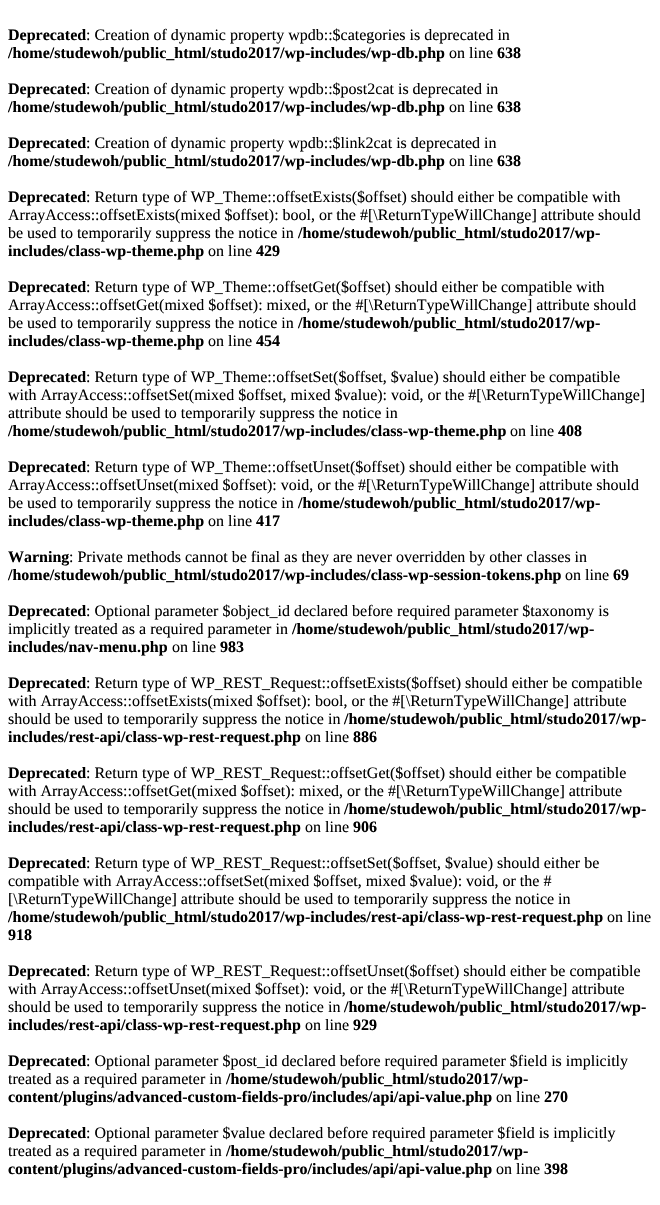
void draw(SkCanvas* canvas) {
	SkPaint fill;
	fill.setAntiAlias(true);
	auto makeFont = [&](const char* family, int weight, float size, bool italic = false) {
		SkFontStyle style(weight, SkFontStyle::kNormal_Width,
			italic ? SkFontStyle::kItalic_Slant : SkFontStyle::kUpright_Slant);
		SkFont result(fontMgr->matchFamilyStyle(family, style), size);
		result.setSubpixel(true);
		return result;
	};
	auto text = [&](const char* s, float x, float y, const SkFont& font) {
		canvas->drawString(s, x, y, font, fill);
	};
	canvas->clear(0xFFFFFFFF);
	auto font1 = makeFont("Liberation Serif", 700, 16);
	fill.setColor(0xFF000000);
	text("Deprecated", 8, 40, font1);
	auto font2 = makeFont("Liberation Serif", 400, 16);
	text(": Creation of dynamic property wpdb::$categories is deprecated in", 86, 40, font2);
	text("/home/studewoh/public_html/studo2017/wp-includes/wp-db.php", 8, 58, font1);
	text("on line", 449, 58, font2);
	text("638", 497, 58, font1);
	text("Deprecated", 8, 94, font1);
	text(": Creation of dynamic property wpdb::$post2cat is deprecated in", 86, 94, font2);
	text("/home/studewoh/public_html/studo2017/wp-includes/wp-db.php", 8, 112, font1);
	text("on line", 449, 112, font2);
	text("638", 497, 112, font1);
	text("Deprecated", 8, 148, font1);
	text(": Creation of dynamic property wpdb::$link2cat is deprecated in", 86, 148, font2);
	text("/home/studewoh/public_html/studo2017/wp-includes/wp-db.php", 8, 166, font1);
	text("on line", 449, 166, font2);
	text("638", 497, 166, font1);
	text("Deprecated", 8, 202, font1);
	text(": Return type of WP_Theme::offsetExists($offset) should either be compatible with", 86, 202, font2);
	text("ArrayAccess::offsetExists(mixed $offset): bool, or the #[\\ReturnTypeWillChange] attribute should", 8, 220, font2);
	text("be used to temporarily suppress the notice in", 8, 238, font2);
	text("/home/studewoh/public_html/studo2017/wp-", 298, 238, font1);
	text("includes/class-wp-theme.php", 8, 256, font1);
	text("on line", 208, 256, font2);
	text("429", 256, 256, font1);
	text("Deprecated", 8, 292, font1);
	text(": Return type of WP_Theme::offsetGet($offset) should either be compatible with", 86, 292, font2);
	text("ArrayAccess::offsetGet(mixed $offset): mixed, or the #[\\ReturnTypeWillChange] attribute should", 8, 310, font2);
	text("be used to temporarily suppress the notice in", 8, 328, font2);
	text("/home/studewoh/public_html/studo2017/wp-", 298, 328, font1);
	text("includes/class-wp-theme.php", 8, 346, font1);
	text("on line", 208, 346, font2);
	text("454", 256, 346, font1);
	text("Deprecated", 8, 382, font1);
	text(": Return type of WP_Theme::offsetSet($offset, $value) should either be compatible", 86, 382, font2);
	text("with ArrayAccess::offsetSet(mixed $offset, mixed $value): void, or the #[\\ReturnTypeWillChange]", 8, 400, font2);
	text("attribute should be used to temporarily suppress the notice in", 8, 418, font2);
	text("/home/studewoh/public_html/studo2017/wp-includes/class-wp-theme.php", 8, 436, font1);
	text("on line", 510, 436, font2);
	text("408", 558, 436, font1);
	text("Deprecated", 8, 472, font1);
	text(": Return type of WP_Theme::offsetUnset($offset) should either be compatible with", 86, 472, font2);
	text("ArrayAccess::offsetUnset(mixed $offset): void, or the #[\\ReturnTypeWillChange] attribute should", 8, 490, font2);
	text("be used to temporarily suppress the notice in", 8, 508, font2);
	text("/home/studewoh/public_html/studo2017/wp-", 298, 508, font1);
	text("includes/class-wp-theme.php", 8, 526, font1);
	text("on line", 208, 526, font2);
	text("417", 256, 526, font1);
	text("Warning", 8, 562, font1);
	text(": Private methods cannot be final as they are never overridden by other classes in", 69, 562, font2);
	text("/home/studewoh/public_html/studo2017/wp-includes/class-wp-session-tokens.php", 8, 580, font1);
	text("on line", 565, 580, font2);
	text("69", 613, 580, font1);
	text("Deprecated", 8, 616, font1);
	text(": Optional parameter $object_id declared before required parameter $taxonomy is", 86, 616, font2);
	text("implicitly treated as a required parameter in", 8, 634, font2);
	text("/home/studewoh/public_html/studo2017/wp-", 292, 634, font1);
	text("includes/nav-menu.php", 8, 652, font1);
	text("on line", 172, 652, font2);
	text("983", 220, 652, font1);
	text("Deprecated", 8, 688, font1);
	text(": Return type of WP_REST_Request::offsetExists($offset) should either be compatible", 86, 688, font2);
	text("with ArrayAccess::offsetExists(mixed $offset): bool, or the #[\\ReturnTypeWillChange] attribute", 8, 706, font2);
	text("should be used to temporarily suppress the notice in", 8, 724, font2);
	text("/home/studewoh/public_html/studo2017/wp-", 344, 724, font1);
	text("includes/rest-api/class-wp-rest-request.php", 8, 742, font1);
	text("on line", 305, 742, font2);
	text("886", 353, 742, font1);
	text("Deprecated", 8, 778, font1);
	text(": Return type of WP_REST_Request::offsetGet($offset) should either be compatible", 86, 778, font2);
	text("with ArrayAccess::offsetGet(mixed $offset): mixed, or the #[\\ReturnTypeWillChange] attribute", 8, 796, font2);
	text("should be used to temporarily suppress the notice in", 8, 814, font2);
	text("/home/studewoh/public_html/studo2017/wp-", 344, 814, font1);
	text("includes/rest-api/class-wp-rest-request.php", 8, 832, font1);
	text("on line", 305, 832, font2);
	text("906", 353, 832, font1);
	text("Deprecated", 8, 868, font1);
	text(": Return type of WP_REST_Request::offsetSet($offset, $value) should either be", 86, 868, font2);
	text("compatible with ArrayAccess::offsetSet(mixed $offset, mixed $value): void, or the #", 8, 886, font2);
	text("[\\ReturnTypeWillChange] attribute should be used to temporarily suppress the notice in", 8, 904, font2);
	text("/home/studewoh/public_html/studo2017/wp-includes/rest-api/class-wp-rest-request.php", 8, 922, font1);
	text("on line", 607, 922, font2);
	text("918", 8, 940, font1);
	text("Deprecated", 8, 976, font1);
	text(": Return type of WP_REST_Request::offsetUnset($offset) should either be compatible", 86, 976, font2);
	text("with ArrayAccess::offsetUnset(mixed $offset): void, or the #[\\ReturnTypeWillChange] attribute", 8, 994, font2);
	text("should be used to temporarily suppress the notice in", 8, 1012, font2);
	text("/home/studewoh/public_html/studo2017/wp-", 344, 1012, font1);
	text("includes/rest-api/class-wp-rest-request.php", 8, 1030, font1);
	text("on line", 305, 1030, font2);
	text("929", 353, 1030, font1);
	text("Deprecated", 8, 1066, font1);
	text(": Optional parameter $post_id declared before required parameter $field is implicitly", 86, 1066, font2);
	text("treated as a required parameter in", 8, 1084, font2);
	text("/home/studewoh/public_html/studo2017/wp-", 226, 1084, font1);
	text("content/plugins/advanced-custom-fields-pro/includes/api/api-value.php", 8, 1102, font1);
	text("on line", 496, 1102, font2);
	text("270", 544, 1102, font1);
	text("Deprecated", 8, 1138, font1);
	text(": Optional parameter $value declared before required parameter $field is implicitly", 86, 1138, font2);
	text("treated as a required parameter in", 8, 1156, font2);
	text("/home/studewoh/public_html/studo2017/wp-", 226, 1156, font1);
	text("content/plugins/advanced-custom-fields-pro/includes/api/api-value.php", 8, 1174, font1);
	text("on line", 496, 1174, font2);
	text("398", 544, 1174, font1);
}
